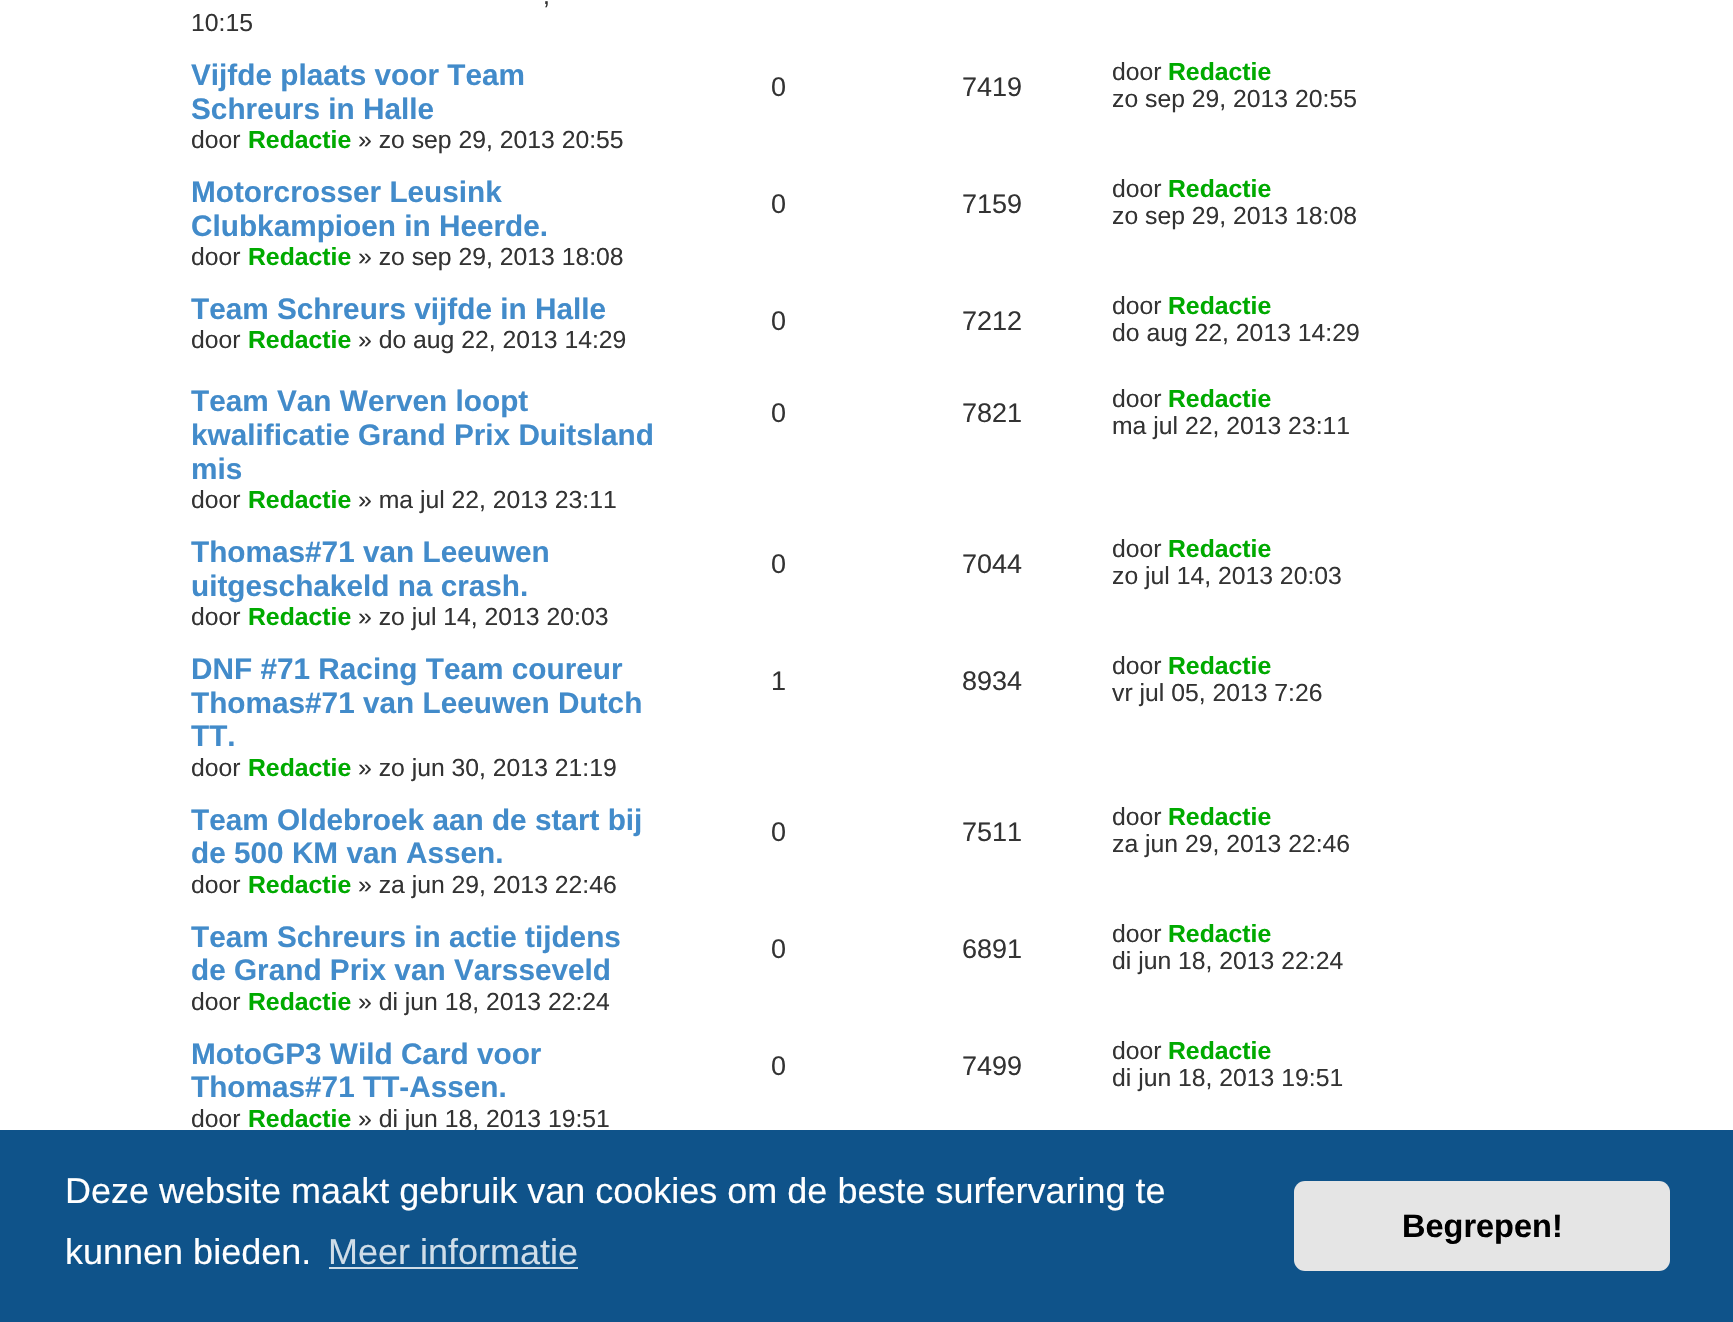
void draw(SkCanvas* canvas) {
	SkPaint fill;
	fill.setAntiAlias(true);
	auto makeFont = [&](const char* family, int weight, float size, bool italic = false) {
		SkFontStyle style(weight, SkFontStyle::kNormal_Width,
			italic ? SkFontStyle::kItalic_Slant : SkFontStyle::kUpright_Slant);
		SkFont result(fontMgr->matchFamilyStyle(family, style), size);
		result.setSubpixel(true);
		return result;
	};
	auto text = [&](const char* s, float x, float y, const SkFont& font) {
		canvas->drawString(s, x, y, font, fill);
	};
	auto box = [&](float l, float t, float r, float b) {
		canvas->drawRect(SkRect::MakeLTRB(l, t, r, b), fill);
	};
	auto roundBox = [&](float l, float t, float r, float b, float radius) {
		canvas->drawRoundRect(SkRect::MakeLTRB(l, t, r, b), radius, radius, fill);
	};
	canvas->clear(0xFFFFFFFF);
	auto font1 = makeFont("Liberation Sans", 400, 24.75f);
	fill.setColor(0xFF333333);
	text(",", 543, 4, font1);
	text("10:15", 191, 31, font1);
	auto font2 = makeFont("Liberation Sans", 700, 29.75f);
	fill.setColor(0xFF428BCA);
	text("Vijfde plaats voor Team", 191, 85, font2);
	text("Schreurs in Halle", 191, 119, font2);
	fill.setColor(0xFF333333);
	text("door", 191, 148, font1);
	auto font3 = makeFont("Liberation Sans", 700, 24.75f);
	fill.setColor(0xFF00AA00);
	text("Redactie", 248, 148, font3);
	fill.setColor(0xFF333333);
	text("» zo sep 29, 2013 20:55", 358, 148, font1);
	auto font4 = makeFont("Liberation Sans", 400, 27);
	text("0", 771, 96, font4);
	text("7419", 962, 96, font4);
	text("door", 1112, 80, font1);
	fill.setColor(0xFF00AA00);
	text("Redactie", 1168, 80, font3);
	fill.setColor(0xFF333333);
	text("zo sep 29, 2013 20:55", 1112, 107, font1);
	fill.setColor(0xFF428BCA);
	text("Motorcrosser Leusink", 191, 202, font2);
	text("Clubkampioen in Heerde.", 191, 236, font2);
	fill.setColor(0xFF333333);
	text("door", 191, 265, font1);
	fill.setColor(0xFF00AA00);
	text("Redactie", 248, 265, font3);
	fill.setColor(0xFF333333);
	text("» zo sep 29, 2013 18:08", 358, 265, font1);
	text("0", 771, 213, font4);
	text("7159", 962, 213, font4);
	text("door", 1112, 197, font1);
	fill.setColor(0xFF00AA00);
	text("Redactie", 1168, 197, font3);
	fill.setColor(0xFF333333);
	text("zo sep 29, 2013 18:08", 1112, 224, font1);
	fill.setColor(0xFF428BCA);
	text("Team Schreurs vijfde in Halle", 191, 319, font2);
	fill.setColor(0xFF333333);
	text("door", 191, 348, font1);
	fill.setColor(0xFF00AA00);
	text("Redactie", 248, 348, font3);
	fill.setColor(0xFF333333);
	text("» do aug 22, 2013 14:29", 358, 348, font1);
	text("0", 771, 330, font4);
	text("7212", 962, 330, font4);
	text("door", 1112, 314, font1);
	fill.setColor(0xFF00AA00);
	text("Redactie", 1168, 314, font3);
	fill.setColor(0xFF333333);
	text("do aug 22, 2013 14:29", 1112, 341, font1);
	fill.setColor(0xFF428BCA);
	text("Team Van Werven loopt", 191, 411, font2);
	text("kwalificatie Grand Prix Duitsland", 191, 445, font2);
	text("mis", 191, 479, font2);
	fill.setColor(0xFF333333);
	text("door", 191, 508, font1);
	fill.setColor(0xFF00AA00);
	text("Redactie", 248, 508, font3);
	fill.setColor(0xFF333333);
	text("» ma jul 22, 2013 23:11", 358, 508, font1);
	text("0", 771, 422, font4);
	text("7821", 962, 422, font4);
	text("door", 1112, 407, font1);
	fill.setColor(0xFF00AA00);
	text("Redactie", 1168, 407, font3);
	fill.setColor(0xFF333333);
	text("ma jul 22, 2013 23:11", 1112, 434, font1);
	fill.setColor(0xFF428BCA);
	text("Thomas#71 van Leeuwen", 191, 562, font2);
	text("uitgeschakeld na crash.", 191, 596, font2);
	fill.setColor(0xFF333333);
	text("door", 191, 625, font1);
	fill.setColor(0xFF00AA00);
	text("Redactie", 248, 625, font3);
	fill.setColor(0xFF333333);
	text("» zo jul 14, 2013 20:03", 358, 625, font1);
	text("0", 771, 573, font4);
	text("7044", 962, 573, font4);
	text("door", 1112, 557, font1);
	fill.setColor(0xFF00AA00);
	text("Redactie", 1168, 557, font3);
	fill.setColor(0xFF333333);
	text("zo jul 14, 2013 20:03", 1112, 584, font1);
	fill.setColor(0xFF428BCA);
	text("DNF #71 Racing Team coureur", 191, 679, font2);
	text("Thomas#71 van Leeuwen Dutch", 191, 713, font2);
	text("TT.", 191, 746, font2);
	fill.setColor(0xFF333333);
	text("door", 191, 776, font1);
	fill.setColor(0xFF00AA00);
	text("Redactie", 248, 776, font3);
	fill.setColor(0xFF333333);
	text("» zo jun 30, 2013 21:19", 358, 776, font1);
	text("1", 771, 690, font4);
	text("8934", 962, 690, font4);
	text("door", 1112, 674, font1);
	fill.setColor(0xFF00AA00);
	text("Redactie", 1168, 674, font3);
	fill.setColor(0xFF333333);
	text("vr jul 05, 2013 7:26", 1112, 701, font1);
	fill.setColor(0xFF428BCA);
	text("Team Oldebroek aan de start bij", 191, 830, font2);
	text("de 500 KM van Assen.", 191, 863, font2);
	fill.setColor(0xFF333333);
	text("door", 191, 893, font1);
	fill.setColor(0xFF00AA00);
	text("Redactie", 248, 893, font3);
	fill.setColor(0xFF333333);
	text("» za jun 29, 2013 22:46", 358, 893, font1);
	text("0", 771, 841, font4);
	text("7511", 962, 841, font4);
	text("door", 1112, 825, font1);
	fill.setColor(0xFF00AA00);
	text("Redactie", 1168, 825, font3);
	fill.setColor(0xFF333333);
	text("za jun 29, 2013 22:46", 1112, 852, font1);
	fill.setColor(0xFF428BCA);
	text("Team Schreurs in actie tijdens", 191, 947, font2);
	text("de Grand Prix van Varsseveld", 191, 980, font2);
	fill.setColor(0xFF333333);
	text("door", 191, 1010, font1);
	fill.setColor(0xFF00AA00);
	text("Redactie", 248, 1010, font3);
	fill.setColor(0xFF333333);
	text("» di jun 18, 2013 22:24", 358, 1010, font1);
	text("0", 771, 958, font4);
	text("6891", 962, 958, font4);
	text("door", 1112, 942, font1);
	fill.setColor(0xFF00AA00);
	text("Redactie", 1168, 942, font3);
	fill.setColor(0xFF333333);
	text("di jun 18, 2013 22:24", 1112, 969, font1);
	fill.setColor(0xFF428BCA);
	text("MotoGP3 Wild Card voor", 191, 1064, font2);
	text("Thomas#71 TT-Assen.", 191, 1097, font2);
	fill.setColor(0xFF333333);
	text("door", 191, 1127, font1);
	fill.setColor(0xFF00AA00);
	text("Redactie", 248, 1127, font3);
	fill.setColor(0xFF333333);
	text("» di jun 18, 2013 19:51", 358, 1127, font1);
	text("0", 771, 1075, font4);
	text("7499", 962, 1075, font4);
	text("door", 1112, 1059, font1);
	fill.setColor(0xFF00AA00);
	text("Redactie", 1168, 1059, font3);
	fill.setColor(0xFF333333);
	text("di jun 18, 2013 19:51", 1112, 1086, font1);
	fill.setColor(0xFF0F538A);
	box(0, 1130, 1733, 1322);
	auto font5 = makeFont("Liberation Sans", 400, 36);
	fill.setColor(0xFFFFFFFF);
	text("Deze website maakt gebruik van cookies om de beste surfervaring te", 65, 1203, font5);
	text("kunnen bieden.", 65, 1264, font5);
	fill.setColor(0xFFCFDDE8);
	text("Meer informatie", 328, 1264, font5);
	box(329, 1267, 578, 1269);
	fill.setColor(0xFFE5E5E5);
	roundBox(1294, 1181, 1670, 1271, 11);
	auto font6 = makeFont("Liberation Sans", 700, 32.5f);
	fill.setColor(0xFF000000);
	text("Begrepen!", 1402, 1237, font6);
}
